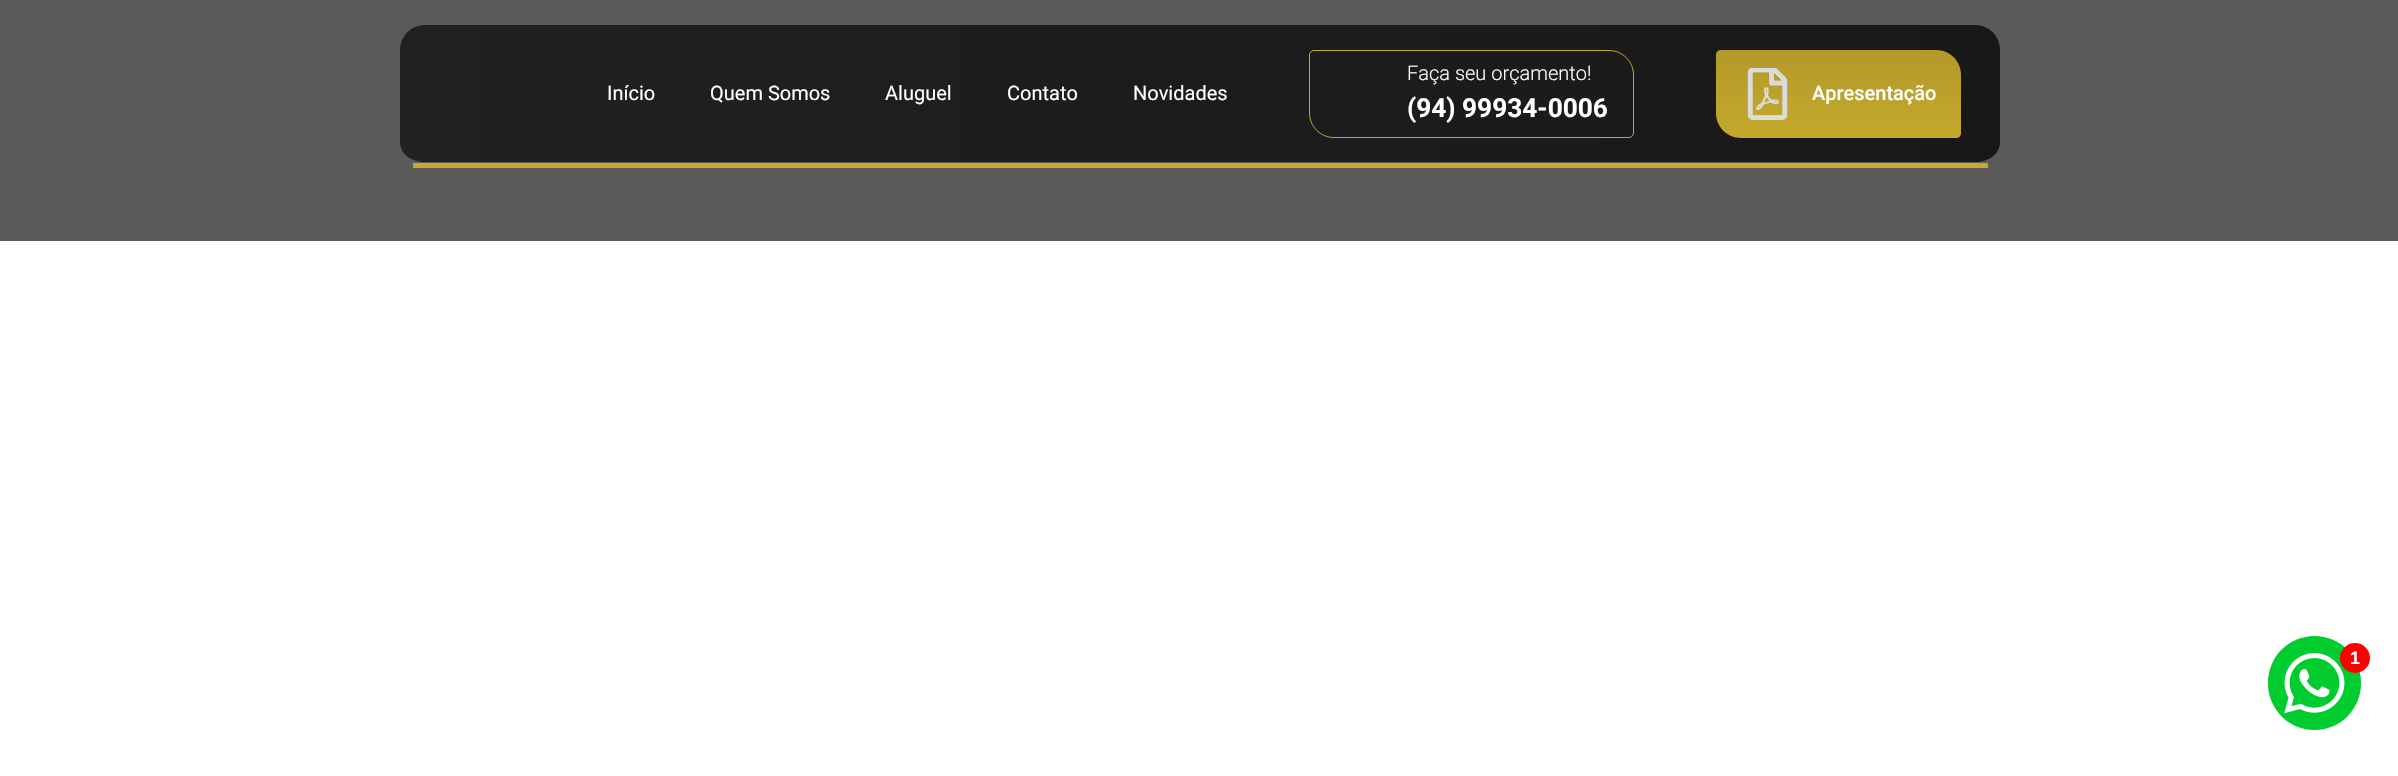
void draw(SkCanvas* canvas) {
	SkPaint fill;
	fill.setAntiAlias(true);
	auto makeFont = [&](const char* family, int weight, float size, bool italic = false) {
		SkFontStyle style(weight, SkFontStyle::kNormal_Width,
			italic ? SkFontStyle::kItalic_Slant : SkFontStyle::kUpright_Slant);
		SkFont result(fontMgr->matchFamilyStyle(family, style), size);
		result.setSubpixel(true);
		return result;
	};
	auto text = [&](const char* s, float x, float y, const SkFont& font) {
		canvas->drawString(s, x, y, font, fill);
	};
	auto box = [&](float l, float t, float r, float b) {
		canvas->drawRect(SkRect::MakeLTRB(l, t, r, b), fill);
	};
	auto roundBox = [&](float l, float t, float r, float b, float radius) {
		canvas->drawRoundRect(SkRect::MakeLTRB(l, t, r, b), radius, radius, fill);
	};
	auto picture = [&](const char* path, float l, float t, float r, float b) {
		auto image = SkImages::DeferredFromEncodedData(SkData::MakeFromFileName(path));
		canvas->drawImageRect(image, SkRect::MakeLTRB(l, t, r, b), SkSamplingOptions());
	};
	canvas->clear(0xFFFFFFFF);
	fill.setColor(0xFF5A5A5A);
	box(0, 0, 2398, 241);
	{
		const SkColor colors[] = {0xD6151515, 0xD60B0B0B};
		const float stops[] = {0, 1};
		const SkPoint ends[] = {{400, 94}, {2000, 94}};
		fill.setShader(SkGradientShader::MakeLinear(ends, colors, stops, 2, SkTileMode::kClamp));
		fill.setAlpha(255);
	}
	canvas->drawPath(SkPathBuilder().moveTo(425, 25).lineTo(1975, 25).cubicTo(1989, 25, 2000, 36, 2000, 50).lineTo(2000, 142).cubicTo(2000, 154, 1989, 162, 1975, 162).lineTo(425, 162).cubicTo(411, 162, 400, 154, 400, 142).lineTo(400, 50).cubicTo(400, 36, 411, 25, 425, 25).close().detach(), fill);
	fill.setShader(nullptr);
	fill.setColor(0xFFC6A92E);
	box(413, 163, 1988, 168);
	fill.setStyle(SkPaint::kStroke_Style);
	fill.setStrokeWidth(1);
	fill.setColor(0xFFC5A92D);
	canvas->drawPath(SkPathBuilder().moveTo(1314, 50.5f).lineTo(1609, 50.5f).cubicTo(1622.5f, 50.5f, 1633.5f, 61.5f, 1633.5f, 75).lineTo(1633.5f, 133).cubicTo(1633.5f, 135.5f, 1631.5f, 137.5f, 1629, 137.5f).lineTo(1334, 137.5f).cubicTo(1320.5f, 137.5f, 1309.5f, 126.5f, 1309.5f, 113).lineTo(1309.5f, 55).cubicTo(1309.5f, 52.5f, 1311.5f, 50.5f, 1314, 50.5f).close().detach(), fill);
	fill.setStyle(SkPaint::kFill_Style);
	{
		const SkColor colors[] = {0xFFB29929, 0xFFC5A92D};
		const float stops[] = {0, 1};
		const SkPoint ends[] = {{1839, 50}, {1839, 138}};
		fill.setShader(SkGradientShader::MakeLinear(ends, colors, stops, 2, SkTileMode::kClamp));
		fill.setAlpha(255);
	}
	canvas->drawPath(SkPathBuilder().moveTo(1721, 50).lineTo(1936, 50).cubicTo(1950, 50, 1961, 61, 1961, 75).lineTo(1961, 133).cubicTo(1961, 136, 1959, 138, 1956, 138).lineTo(1741, 138).cubicTo(1727, 138, 1716, 127, 1716, 113).lineTo(1716, 55).cubicTo(1716, 52, 1718, 50, 1721, 50).close().detach(), fill);
	picture("image0.png", 1747, 68, 1788, 120);
	fill.setShader(nullptr);
	fill.setColor(0xFF00CC2F);
	roundBox(2268, 636, 2361, 730, 46.5f);
	picture("image1.png", 2284, 653, 2345, 714);
	fill.setColor(0xFFFF0000);
	canvas->drawCircle(2355, 658, 15, fill);
	auto font1 = makeFont("Roboto", 400, 20);
	fill.setColor(0xFFFFFFFF);
	text("Início", 607, 100, font1);
	text("Quem Somos", 710, 100, font1);
	text("Aluguel", 885, 100, font1);
	text("Contato", 1007, 100, font1);
	text("Novidades", 1133, 100, font1);
	auto font2 = makeFont("Roboto", 300, 20);
	text("Faça seu orçamento!", 1407, 80, font2);
	auto font3 = makeFont("Roboto", 700, 26.25f);
	text("(94) 99934-0006", 1407, 117, font3);
	auto font4 = makeFont("Roboto", 500, 20);
	text("Apresentação", 1812, 100, font4);
	auto font5 = makeFont("Liberation Sans", 700, 18);
	text("1", 2350, 664, font5);
}
